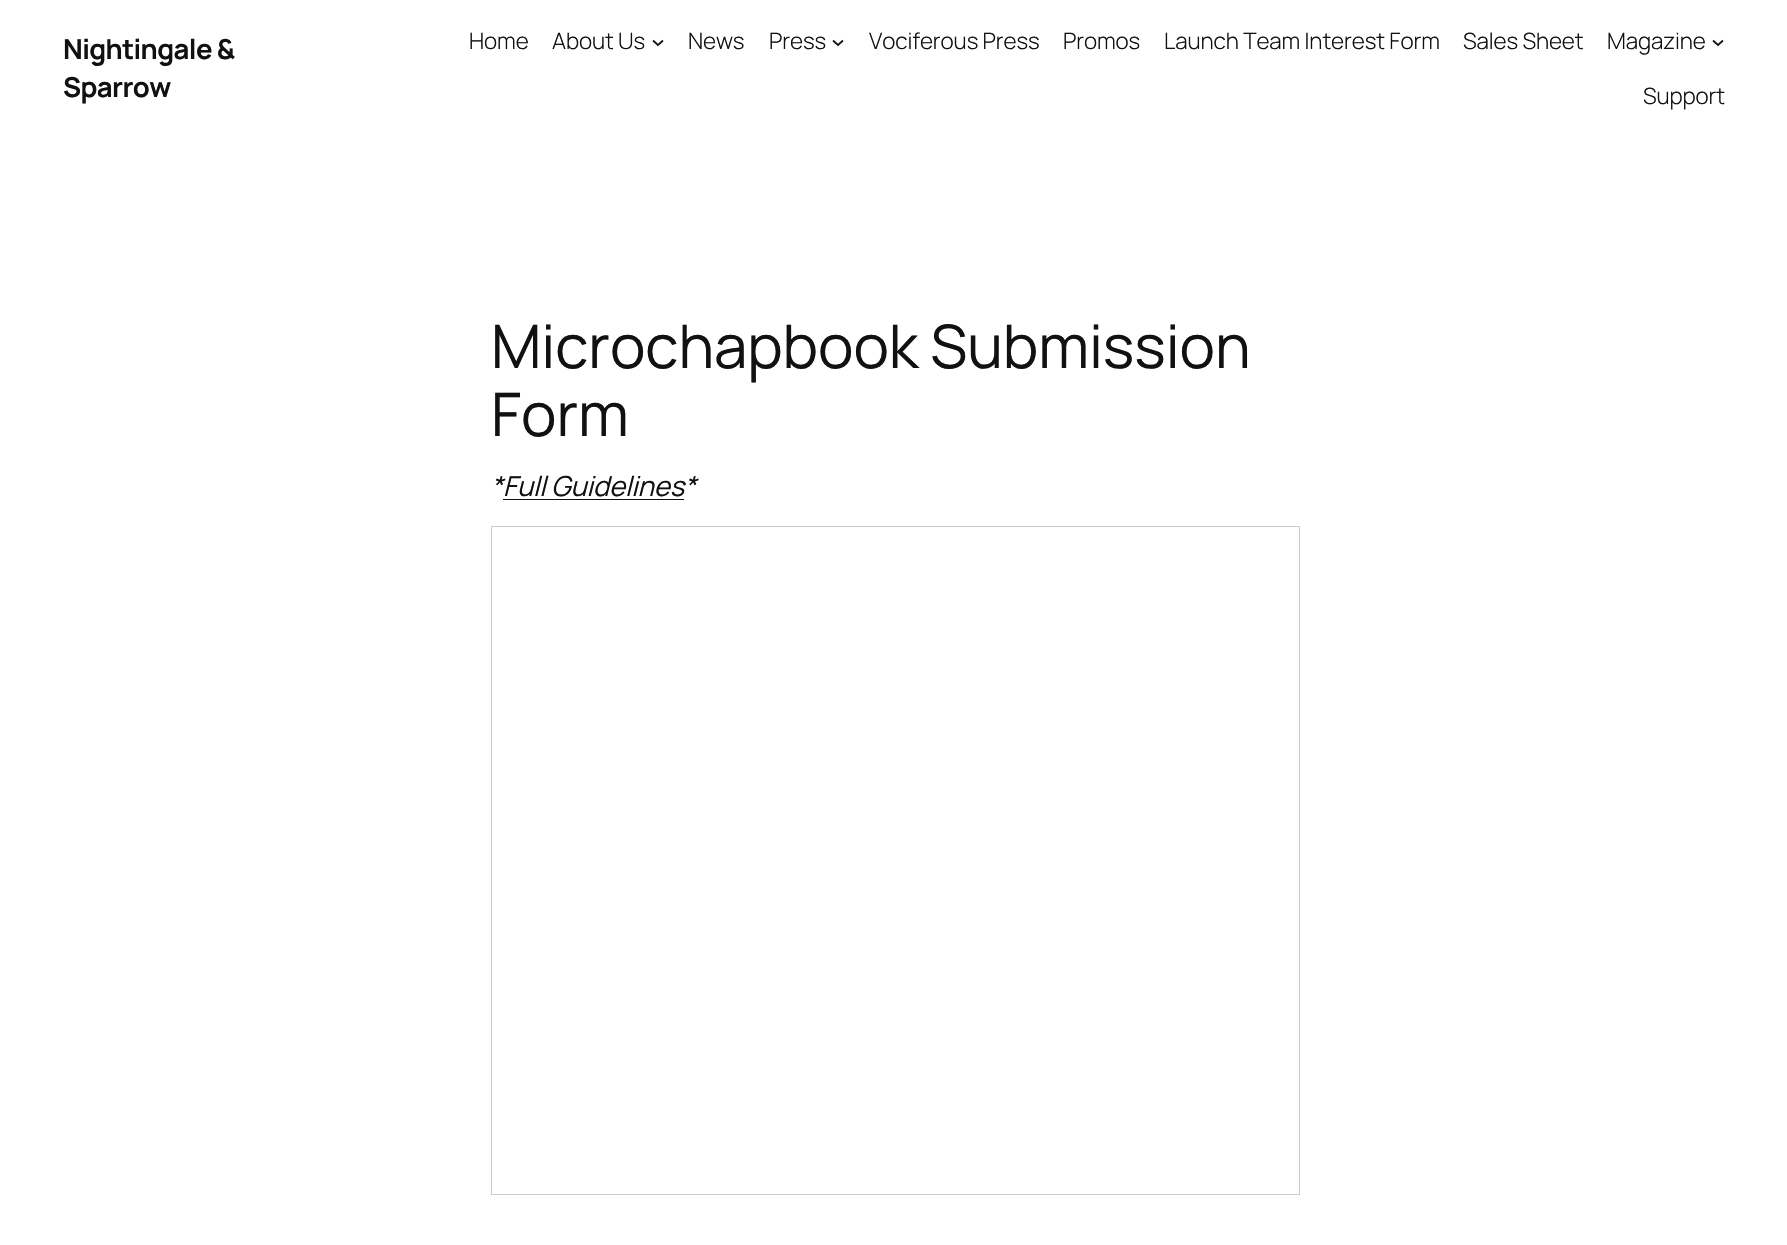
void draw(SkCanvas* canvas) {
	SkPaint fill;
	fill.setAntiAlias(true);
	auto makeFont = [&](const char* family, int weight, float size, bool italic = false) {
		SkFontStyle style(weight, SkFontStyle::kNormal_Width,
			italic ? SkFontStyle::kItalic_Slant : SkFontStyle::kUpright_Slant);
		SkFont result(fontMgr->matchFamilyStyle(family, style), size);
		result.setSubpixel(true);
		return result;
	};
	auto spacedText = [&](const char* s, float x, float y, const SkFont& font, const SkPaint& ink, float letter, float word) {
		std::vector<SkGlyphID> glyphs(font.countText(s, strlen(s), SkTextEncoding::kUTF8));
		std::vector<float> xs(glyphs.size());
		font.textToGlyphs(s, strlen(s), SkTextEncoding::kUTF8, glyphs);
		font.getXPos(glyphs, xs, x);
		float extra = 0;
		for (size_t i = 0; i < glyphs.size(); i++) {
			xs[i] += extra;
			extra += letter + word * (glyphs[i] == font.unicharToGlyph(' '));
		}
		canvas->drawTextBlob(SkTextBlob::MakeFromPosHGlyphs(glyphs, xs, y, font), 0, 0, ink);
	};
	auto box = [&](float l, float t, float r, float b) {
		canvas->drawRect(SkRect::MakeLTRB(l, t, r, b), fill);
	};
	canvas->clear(0xFFFFFFFF);
	fill.setStyle(SkPaint::kStroke_Style);
	fill.setStrokeWidth(1.7f);
	fill.setColor(0xFF111111);
	canvas->drawPath(SkPathBuilder().moveTo(653, 40.5f).lineTo(658, 45).lineTo(663, 40.5f).detach(), fill);
	canvas->drawPath(SkPathBuilder().moveTo(833, 40.5f).lineTo(838, 45).lineTo(843, 40.5f).detach(), fill);
	canvas->drawPath(SkPathBuilder().moveTo(1713, 40.5f).lineTo(1718, 45).lineTo(1723, 40.5f).detach(), fill);
	fill.setStyle(SkPaint::kFill_Style);
	box(503, 499, 684, 500);
	fill.setStyle(SkPaint::kStroke_Style);
	fill.setStrokeWidth(1);
	fill.setColor(0xFFCCCCCC);
	canvas->drawRect(SkRect::MakeLTRB(491.5f, 526.5f, 1299.5f, 1194.5f), fill);
	auto font1 = makeFont("Manrope", 700, 27.5f);
	fill.setStyle(SkPaint::kFill_Style);
	fill.setColor(0xFF111111);
	spacedText("Nightingale &", 63, 59, font1, fill, -0.6f, 0);
	spacedText("Sparrow", 63, 97, font1, fill, -0.6f, 0);
	auto font2 = makeFont("Manrope", 300, 22.5f);
	spacedText("Home", 469, 49, font2, fill, -0.1f, 0);
	spacedText("About Us", 552, 49, font2, fill, -0.1f, 0);
	spacedText("News", 688, 49, font2, fill, -0.1f, 0);
	spacedText("Press", 769, 49, font2, fill, -0.1f, 0);
	spacedText("Vociferous Press", 869, 49, font2, fill, -0.1f, 0);
	spacedText("Promos", 1063, 49, font2, fill, -0.1f, 0);
	spacedText("Launch Team Interest Form", 1164, 49, font2, fill, -0.1f, 0);
	spacedText("Sales Sheet", 1463, 49, font2, fill, -0.1f, 0);
	spacedText("Magazine", 1607, 49, font2, fill, -0.1f, 0);
	spacedText("Support", 1643, 104, font2, fill, -0.1f, 0);
	auto font3 = makeFont("Manrope", 400, 60);
	spacedText("Microchapbook Submission", 491, 368, font3, fill, -0.1f, 0);
	spacedText("Form", 491, 436, font3, fill, -0.1f, 0);
	auto font4 = makeFont("Manrope", 400, 27.5f, true);
	spacedText("*Full Guidelines*", 491, 496, font4, fill, -0.1f, 0);
}
